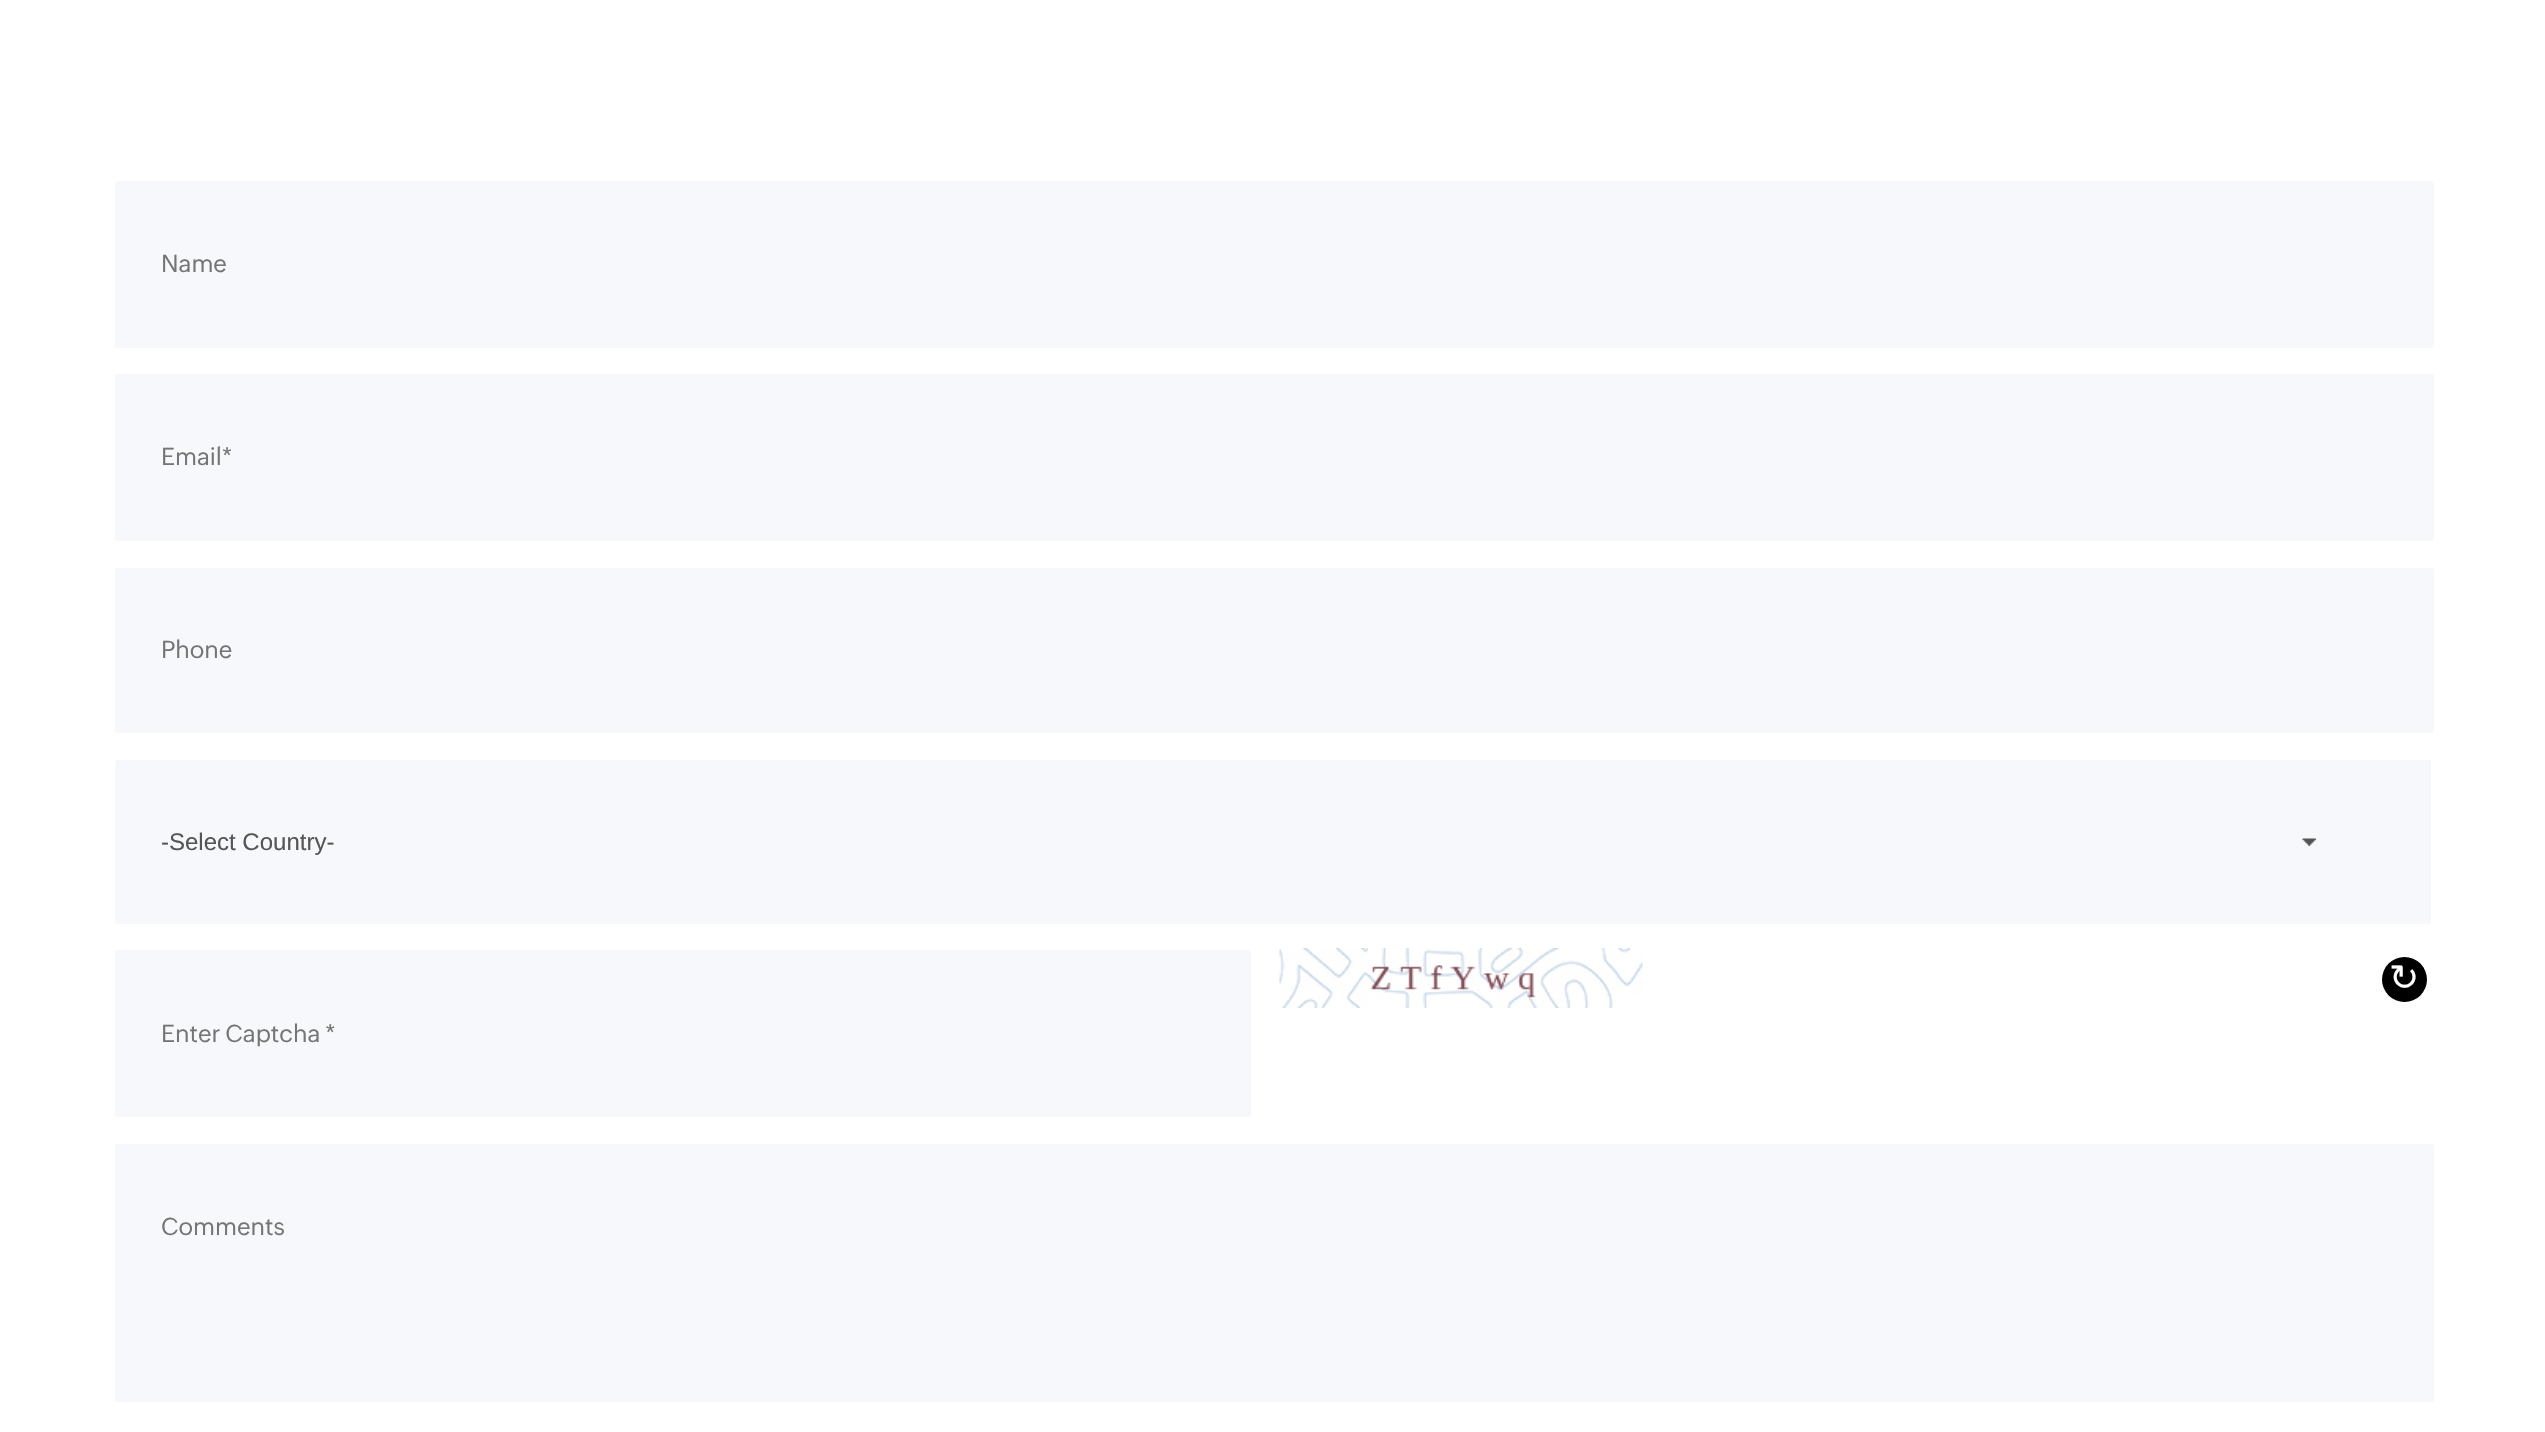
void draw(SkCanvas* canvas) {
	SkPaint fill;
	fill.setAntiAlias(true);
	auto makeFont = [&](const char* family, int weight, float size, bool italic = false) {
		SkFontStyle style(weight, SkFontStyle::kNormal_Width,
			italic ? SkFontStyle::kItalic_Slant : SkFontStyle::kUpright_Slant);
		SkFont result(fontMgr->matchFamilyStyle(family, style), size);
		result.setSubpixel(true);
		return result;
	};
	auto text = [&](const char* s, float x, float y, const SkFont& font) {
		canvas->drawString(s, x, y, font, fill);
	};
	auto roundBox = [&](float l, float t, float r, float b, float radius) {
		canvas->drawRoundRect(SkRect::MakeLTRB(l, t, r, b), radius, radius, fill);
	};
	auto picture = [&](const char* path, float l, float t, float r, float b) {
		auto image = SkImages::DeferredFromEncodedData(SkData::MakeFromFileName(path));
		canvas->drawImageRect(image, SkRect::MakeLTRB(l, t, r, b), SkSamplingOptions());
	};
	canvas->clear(0xFFFFFFFF);
	fill.setColor(0xFFF7F8FB);
	canvas->drawRoundRect(SkRect::MakeLTRB(114, 180, 2435, 349), 4, 4, fill);
	fill.setStyle(SkPaint::kStroke_Style);
	fill.setStrokeWidth(2);
	fill.setColor(0xFFFFFFFF);
	canvas->drawRoundRect(SkRect::MakeLTRB(114, 180, 2435, 349), 4, 4, fill);
	fill.setStyle(SkPaint::kFill_Style);
	fill.setColor(0xFFF7F8FB);
	canvas->drawRoundRect(SkRect::MakeLTRB(114, 373, 2435, 542), 4, 4, fill);
	fill.setStyle(SkPaint::kStroke_Style);
	fill.setColor(0xFFFFFFFF);
	canvas->drawRoundRect(SkRect::MakeLTRB(114, 373, 2435, 542), 4, 4, fill);
	fill.setStyle(SkPaint::kFill_Style);
	fill.setColor(0xFFF7F8FB);
	canvas->drawRoundRect(SkRect::MakeLTRB(114, 567, 2435, 734), 4, 4, fill);
	fill.setStyle(SkPaint::kStroke_Style);
	fill.setColor(0xFFFFFFFF);
	canvas->drawRoundRect(SkRect::MakeLTRB(114, 567, 2435, 734), 4, 4, fill);
	fill.setStyle(SkPaint::kFill_Style);
	fill.setColor(0xFFF7F8FB);
	roundBox(113, 758, 2433, 926, 5);
	picture("image0.png", 2302, 838, 2316, 846);
	fill.setStyle(SkPaint::kStroke_Style);
	fill.setColor(0xFFFFFFFF);
	canvas->drawRoundRect(SkRect::MakeLTRB(114, 759, 2432, 925), 4, 4, fill);
	picture("image1.png", 1279, 948, 1643, 1008);
	fill.setStyle(SkPaint::kFill_Style);
	fill.setColor(0xFF000000);
	canvas->drawCircle(2404.5f, 979.5f, 22.5f, fill);
	fill.setColor(0xFFF7F8FB);
	canvas->drawRoundRect(SkRect::MakeLTRB(114, 949, 1252, 1118), 4, 4, fill);
	fill.setStyle(SkPaint::kStroke_Style);
	fill.setColor(0xFFFFFFFF);
	canvas->drawRoundRect(SkRect::MakeLTRB(114, 949, 1252, 1118), 4, 4, fill);
	fill.setStyle(SkPaint::kFill_Style);
	fill.setColor(0xFFF7F8FB);
	canvas->drawRoundRect(SkRect::MakeLTRB(114, 1143, 2435, 1403), 4, 4, fill);
	fill.setStyle(SkPaint::kStroke_Style);
	fill.setColor(0xFFFFFFFF);
	canvas->drawRoundRect(SkRect::MakeLTRB(114, 1143, 2435, 1403), 4, 4, fill);
	auto font1 = makeFont("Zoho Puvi", 400, 24);
	fill.setStyle(SkPaint::kFill_Style);
	fill.setColor(0xFF757575);
	text("Name", 161, 272, font1);
	text("Email*", 161, 465, font1);
	text("Phone", 161, 658, font1);
	auto font2 = makeFont("Liberation Sans", 400, 24);
	fill.setColor(0xFF555555);
	text("-Select Country-", 161, 850, font2);
	auto font3 = makeFont("DejaVu Sans", 400, 36);
	fill.setColor(0xFFFFFFFF);
	text("↻", 2389, 990, font3);
	fill.setColor(0xFF757575);
	text("Enter Captcha *", 161, 1042, font1);
	text("Comments", 161, 1235, font1);
}
